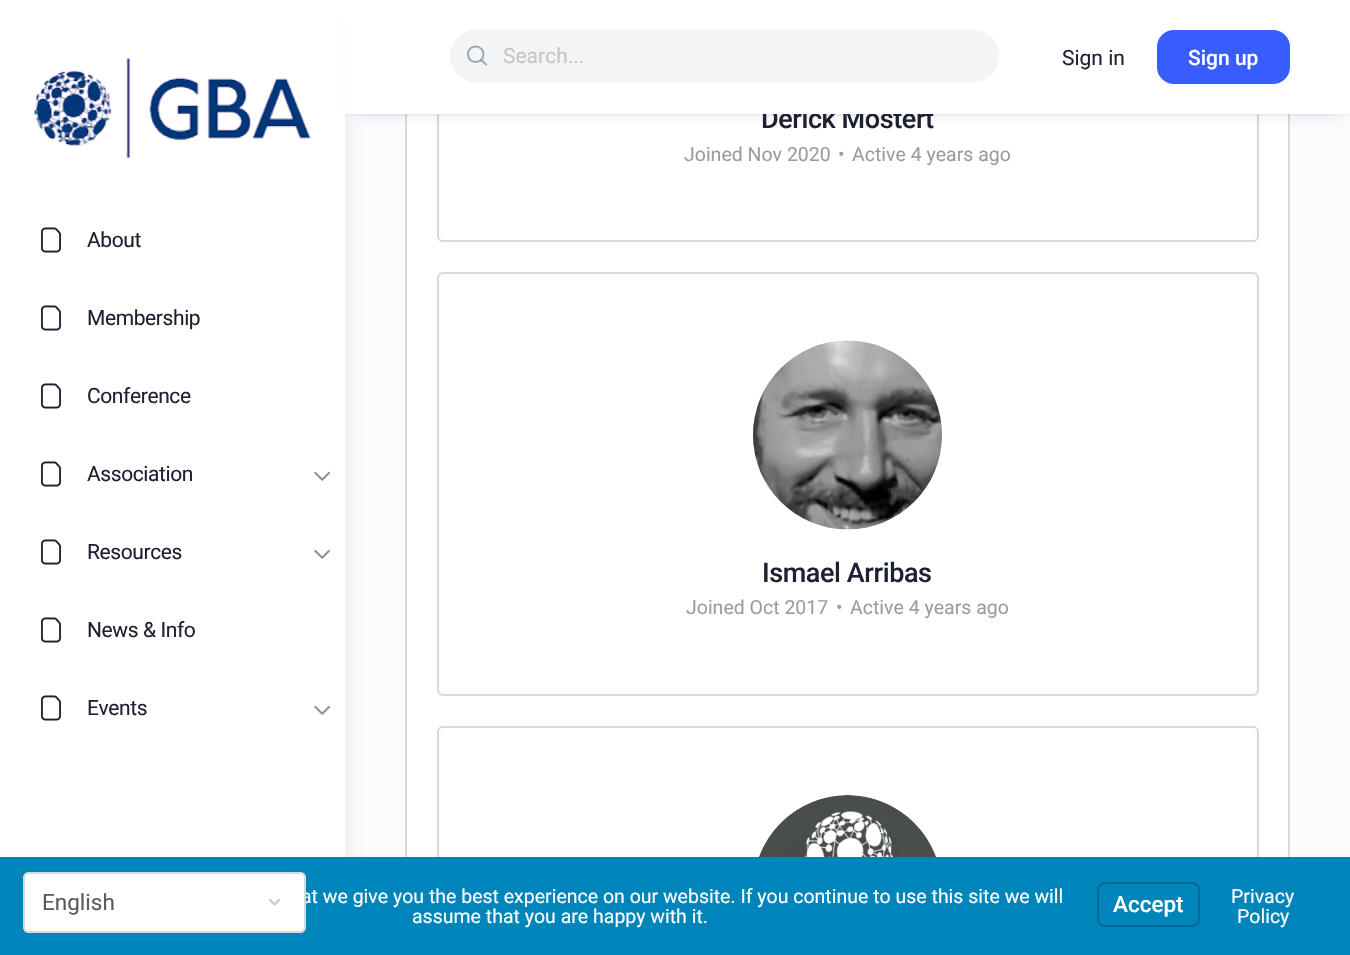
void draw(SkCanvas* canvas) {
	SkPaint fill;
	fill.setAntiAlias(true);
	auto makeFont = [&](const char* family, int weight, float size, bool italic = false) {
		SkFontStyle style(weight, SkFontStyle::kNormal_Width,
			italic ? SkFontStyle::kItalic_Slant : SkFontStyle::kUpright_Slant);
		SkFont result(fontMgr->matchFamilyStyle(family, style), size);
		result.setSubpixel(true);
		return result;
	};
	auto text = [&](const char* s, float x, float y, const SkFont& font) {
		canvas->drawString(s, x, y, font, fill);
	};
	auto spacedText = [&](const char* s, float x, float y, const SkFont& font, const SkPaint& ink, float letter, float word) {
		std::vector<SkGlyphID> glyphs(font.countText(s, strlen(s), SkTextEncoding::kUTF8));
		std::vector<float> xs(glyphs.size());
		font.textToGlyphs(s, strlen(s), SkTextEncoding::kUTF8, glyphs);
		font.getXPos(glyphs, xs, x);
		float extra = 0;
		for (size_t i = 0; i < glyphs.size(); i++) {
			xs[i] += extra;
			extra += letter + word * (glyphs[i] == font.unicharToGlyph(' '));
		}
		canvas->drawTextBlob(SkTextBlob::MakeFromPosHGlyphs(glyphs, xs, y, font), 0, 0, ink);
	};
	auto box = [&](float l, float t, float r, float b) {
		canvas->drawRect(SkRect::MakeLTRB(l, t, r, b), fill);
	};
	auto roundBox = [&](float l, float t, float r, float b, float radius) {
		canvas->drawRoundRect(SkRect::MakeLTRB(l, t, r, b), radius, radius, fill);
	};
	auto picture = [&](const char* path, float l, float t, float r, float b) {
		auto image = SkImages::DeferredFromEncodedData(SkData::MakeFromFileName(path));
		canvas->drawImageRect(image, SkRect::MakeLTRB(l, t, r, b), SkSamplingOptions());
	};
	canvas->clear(0xFFFAFBFD);
	fill.setColor(0x1A122B46);
	fill.setMaskFilter(SkMaskFilter::MakeBlur(kNormal_SkBlurStyle, 10));
	canvas->drawRect(SkRect::MakeLTRB(0, 5, 345, 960), fill);
	fill.setMaskFilter(nullptr);
	fill.setColor(0xFFFFFFFF);
	box(0, 0, 345, 857);
	picture("image0.png", 34, 58, 311, 158);
	picture("image1.png", 41, 227, 61, 253);
	picture("image1.png", 41, 305, 61, 331);
	picture("image1.png", 41, 383, 61, 409);
	picture("image1.png", 41, 461, 61, 487);
	picture("image2.png", 314, 471, 330, 481);
	picture("image1.png", 41, 539, 61, 565);
	picture("image2.png", 314, 549, 330, 559);
	picture("image1.png", 41, 617, 61, 643);
	picture("image1.png", 41, 695, 61, 721);
	picture("image2.png", 314, 705, 330, 715);
	box(407, 114, 1288, 857);
	fill.setStyle(SkPaint::kStroke_Style);
	fill.setStrokeWidth(2);
	fill.setColor(0xFFD6D9DD);
	canvas->drawRect(SkRect::MakeLTRB(406, -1, 1289, 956), fill);
	canvas->drawRoundRect(SkRect::MakeLTRB(438, -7, 1258, 241), 5, 5, fill);
	fill.setStyle(SkPaint::kFill_Style);
	fill.setColor(0x4041476C);
	fill.setMaskFilter(SkMaskFilter::MakeBlur(kNormal_SkBlurStyle, 7.5f));
	canvas->drawRect(SkRect::MakeLTRB(356, 18, 1340, 111), fill);
	fill.setMaskFilter(nullptr);
	fill.setColor(0x0D8B8D9D);
	box(345, 114, 1350, 116);
	fill.setStyle(SkPaint::kStroke_Style);
	fill.setColor(0xFFD6D9DD);
	canvas->drawRoundRect(SkRect::MakeLTRB(438, 273, 1258, 695), 5, 5, fill);
	picture("image3.png", 753, 340, 942, 530);
	canvas->drawRoundRect(SkRect::MakeLTRB(438, 727, 1258, 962), 5, 5, fill);
	picture("image4.png", 759, 795, 936, 857);
	fill.setStyle(SkPaint::kFill_Style);
	fill.setColor(0xFF0085BA);
	box(0, 857, 1350, 955);
	fill.setColor(0xFFFFFFFF);
	roundBox(23, 872, 306, 933, 6);
	fill.setStyle(SkPaint::kStroke_Style);
	fill.setStrokeWidth(2.2f);
	fill.setStrokeCap(SkPaint::kRound_Cap);
	fill.setStrokeJoin(SkPaint::kRound_Join);
	fill.setColor(0xFFC4CAD1);
	canvas->drawPath(SkPathBuilder().moveTo(279, 900).lineTo(274.5f, 904.5f).lineTo(270, 900).detach(), fill);
	fill.setStrokeWidth(2);
	fill.setStrokeCap(SkPaint::kButt_Cap);
	fill.setStrokeJoin(SkPaint::kMiter_Join);
	fill.setColor(0xFF006799);
	canvas->drawRoundRect(SkRect::MakeLTRB(1098, 883, 1199, 926), 7, 7, fill);
	auto font1 = makeFont("Roboto", 400, 21);
	fill.setStyle(SkPaint::kFill_Style);
	fill.setColor(0xFF1E2132);
	spacedText("About", 87, 247, font1, fill, -0.4f, 0);
	spacedText("Membership", 87, 325, font1, fill, -0.4f, 0);
	spacedText("Conference", 87, 403, font1, fill, -0.4f, 0);
	spacedText("Association", 87, 481, font1, fill, -0.4f, 0);
	spacedText("Resources", 87, 559, font1, fill, -0.4f, 0);
	spacedText("News & Info", 87, 637, font1, fill, -0.4f, 0);
	spacedText("Events", 87, 715, font1, fill, -0.4f, 0);
	auto font2 = makeFont("Roboto", 500, 27);
	spacedText("Derick Mostert", 761, 128, font2, fill, -0.4f, 0);
	fill.setColor(0xFFFFFFFF);
	box(345, 0, 1350, 114);
	fill.setColor(0xFFF2F4F5);
	roundBox(450, 29, 999, 83, 27);
	fill.setColor(0xFFC3C6C9);
	text("Search...", 503, 63, font1);
	fill.setStyle(SkPaint::kStroke_Style);
	fill.setStrokeCap(SkPaint::kRound_Cap);
	fill.setStrokeJoin(SkPaint::kRound_Join);
	fill.setColor(0xFF9CA8B4);
	canvas->drawPath(SkPathBuilder().moveTo(486, 64.5f).lineTo(481, 59.5f).moveTo(475.5f, 46.5f).cubicTo(486, 46.5f, 486, 62, 475.5f, 62).cubicTo(465.5f, 62, 465.5f, 46.5f, 475.5f, 46.5f).close().detach(), fill);
	fill.setStyle(SkPaint::kFill_Style);
	fill.setColor(0xFF385DFF);
	canvas->drawRoundRect(SkRect::MakeLTRB(1158, 31, 1289, 83), 16, 16, fill);
	fill.setStyle(SkPaint::kStroke_Style);
	fill.setStrokeCap(SkPaint::kButt_Cap);
	fill.setStrokeJoin(SkPaint::kMiter_Join);
	canvas->drawRoundRect(SkRect::MakeLTRB(1158, 31, 1289, 83), 16, 16, fill);
	auto font3 = makeFont("Roboto", 500, 21);
	fill.setStyle(SkPaint::kFill_Style);
	fill.setColor(0xFFFFFFFF);
	text("Sign up", 1188, 65, font3);
	fill.setColor(0xFF1E2132);
	text("Sign in", 1062, 65, font1);
	auto font4 = makeFont("Roboto", 400, 19.5f);
	fill.setColor(0xFF9B9C9F);
	text("Joined Nov 2020", 684, 161, font4);
	text("•", 838, 161, font4);
	text("Active 4 years ago", 852, 161, font4);
	fill.setColor(0xFF1E2132);
	spacedText("Ismael Arribas", 762, 582, font2, fill, -0.4f, 0);
	fill.setColor(0xFF9B9C9F);
	text("Joined Oct 2017", 686, 614, font4);
	text("•", 836, 614, font4);
	text("Active 4 years ago", 850, 614, font4);
	fill.setColor(0xFFFFFFFF);
	text("at we give you the best experience on our website. If you continue to use this site we will", 301, 903, font4);
	fill.setStyle(SkPaint::kStroke_Style);
	fill.setColor(0xFFD6D9DD);
	canvas->drawRoundRect(SkRect::MakeLTRB(24, 873, 305, 932), 5, 5, fill);
	auto font5 = makeFont("Roboto", 400, 22.5f);
	fill.setStyle(SkPaint::kFill_Style);
	fill.setColor(0xFF5A5A5A);
	text("English", 42, 910, font5);
	fill.setColor(0xFFFFFFFF);
	text("assume that you are happy with it.", 412, 923, font4);
	auto font6 = makeFont("Roboto", 500, 22.5f);
	text("Accept", 1113, 912, font6);
	text("Privacy", 1231, 903, font4);
	text("Policy", 1237, 923, font4);
}
